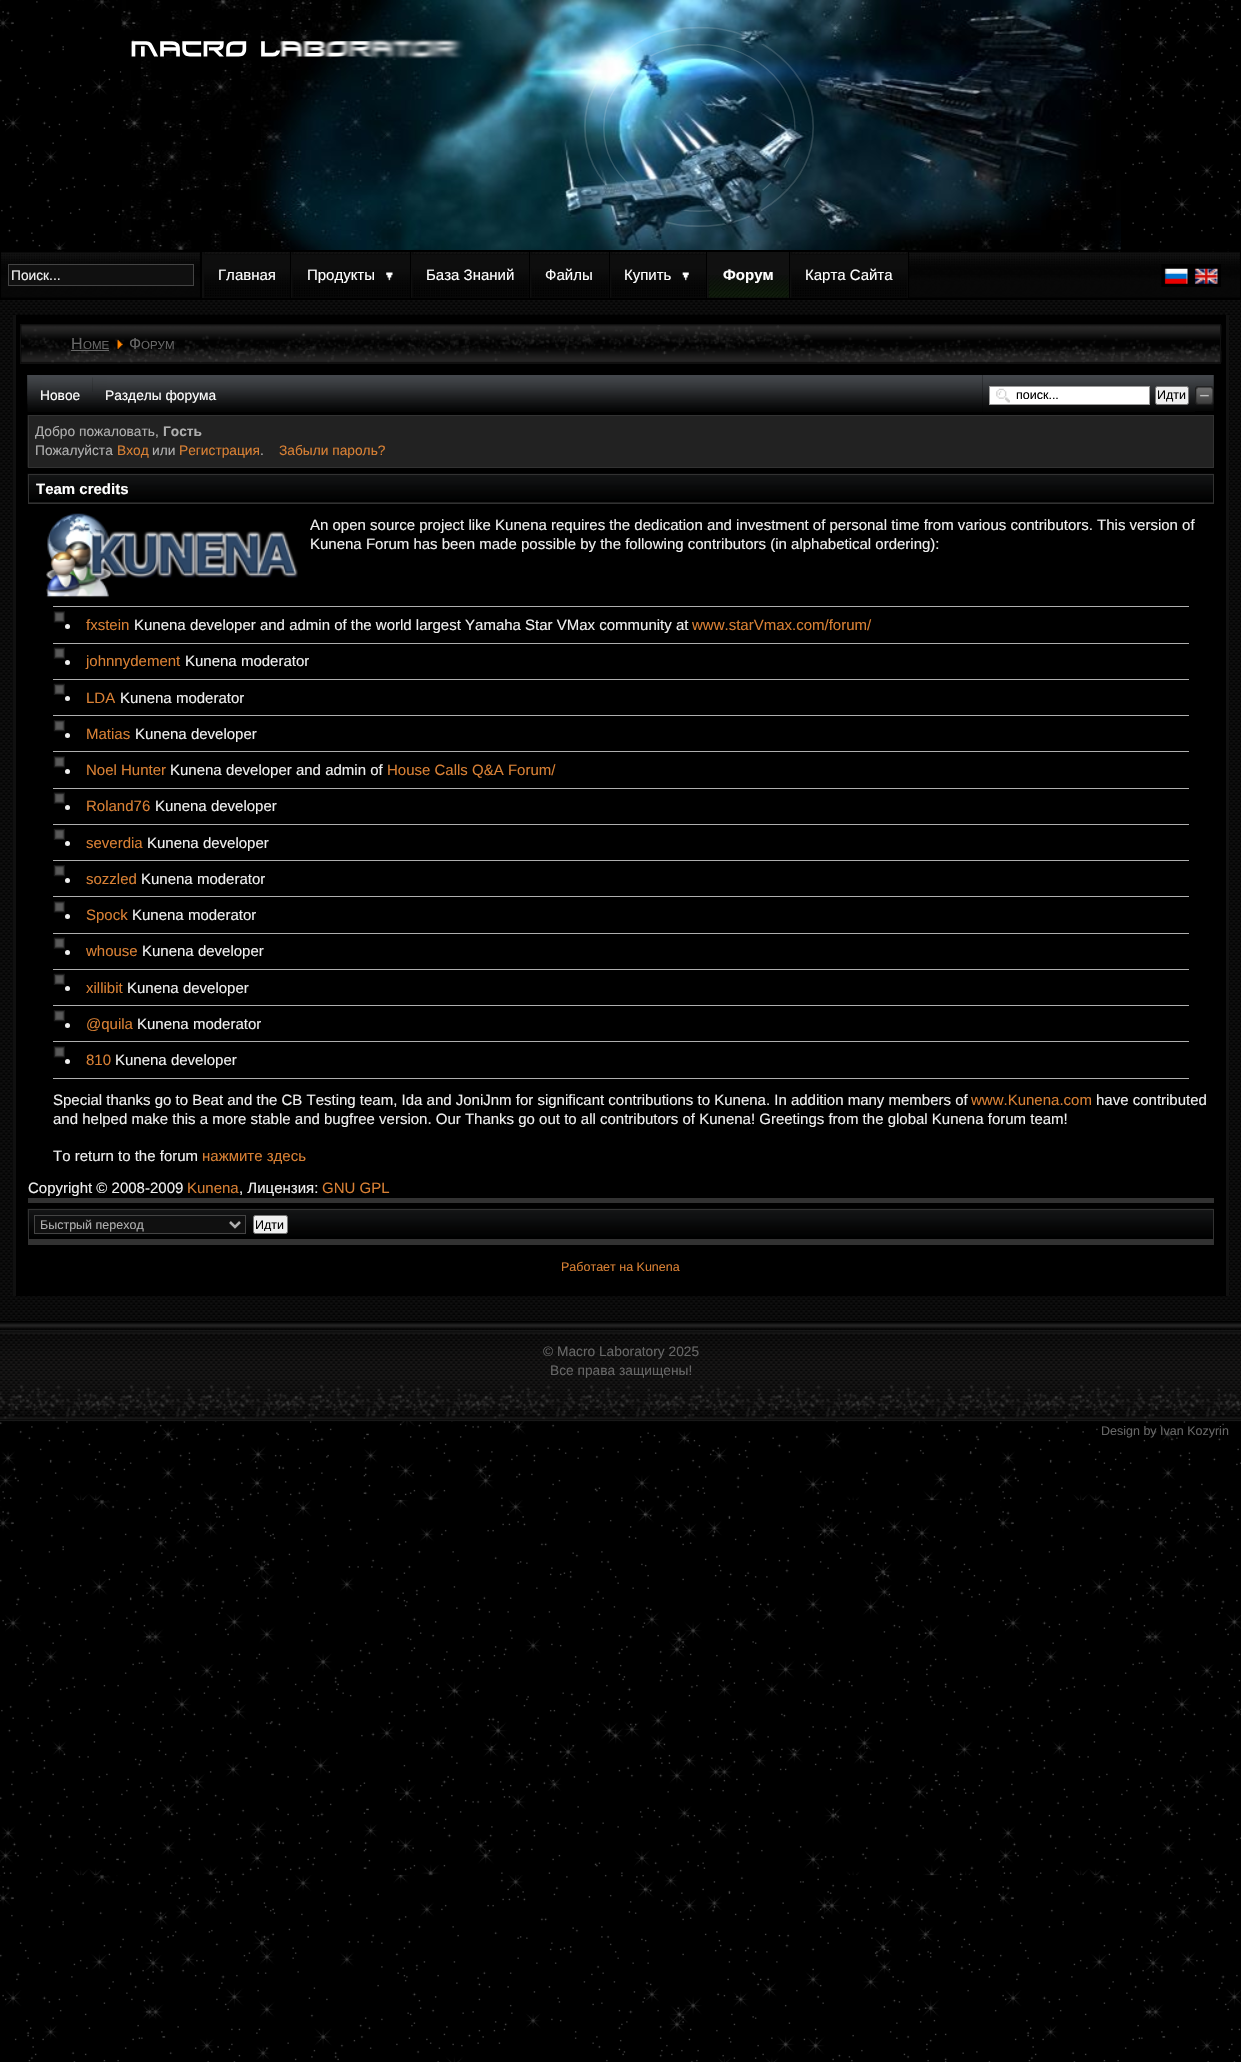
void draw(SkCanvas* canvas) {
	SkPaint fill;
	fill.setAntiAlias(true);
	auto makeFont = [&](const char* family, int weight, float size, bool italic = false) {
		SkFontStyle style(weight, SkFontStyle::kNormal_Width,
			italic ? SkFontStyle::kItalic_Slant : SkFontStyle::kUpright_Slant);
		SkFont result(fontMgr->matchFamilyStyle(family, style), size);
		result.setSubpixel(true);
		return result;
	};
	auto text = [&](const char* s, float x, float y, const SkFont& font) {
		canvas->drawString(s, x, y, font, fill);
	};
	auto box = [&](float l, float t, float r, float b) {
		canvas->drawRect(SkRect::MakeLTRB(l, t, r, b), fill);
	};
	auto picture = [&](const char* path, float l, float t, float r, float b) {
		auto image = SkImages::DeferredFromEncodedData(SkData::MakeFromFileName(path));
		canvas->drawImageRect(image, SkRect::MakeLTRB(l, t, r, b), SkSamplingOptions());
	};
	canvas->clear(0xFFFFFFFF);
	picture("image0.png", 0, 0, 1241, 2062);
	picture("image1.png", 121, 0, 1121, 250);
	picture("image2.png", 1, 251, 1240, 299);
	fill.setStyle(SkPaint::kStroke_Style);
	fill.setStrokeWidth(1);
	fill.setColor(0xFF000000);
	canvas->drawRect(SkRect::MakeLTRB(0.5f, 250.5f, 1240.5f, 299.5f), fill);
	fill.setStyle(SkPaint::kFill_Style);
	fill.setColor(0xFF101010);
	canvas->drawRect(SkRect::MakeLTRB(8.5f, 264.5f, 193.5f, 285.5f), fill);
	fill.setStyle(SkPaint::kStroke_Style);
	fill.setColor(0xFF444444);
	canvas->drawRect(SkRect::MakeLTRB(8.5f, 264.5f, 193.5f, 285.5f), fill);
	fill.setStyle(SkPaint::kFill_Style);
	fill.setColor(0xFF000000);
	box(200, 251, 202, 299);
	fill.setColor(0xFF0E0E0E);
	box(202, 252, 290, 298);
	picture("image3.png", 204, 252, 290, 298);
	fill.setColor(0xFF000000);
	box(212, 251, 229, 252);
	fill.setColor(0xFF0E0E0E);
	box(291, 252, 410, 298);
	picture("image4.png", 292, 252, 410, 298);
	fill.setColor(0xFF000000);
	box(304, 251, 305, 252);
	box(290, 251, 291, 299);
	picture("image5.png", 386, 272, 393, 281);
	fill.setColor(0xFF0E0E0E);
	box(411, 252, 529, 298);
	picture("image6.png", 412, 252, 529, 298);
	fill.setColor(0xFF000000);
	box(487, 251, 507, 252);
	box(410, 251, 411, 299);
	fill.setColor(0xFF0E0E0E);
	box(530, 252, 609, 298);
	picture("image7.png", 531, 252, 609, 298);
	fill.setColor(0xFF000000);
	box(559, 251, 588, 252);
	box(529, 251, 530, 299);
	fill.setColor(0xFF0E0E0E);
	box(610, 252, 706, 298);
	picture("image8.png", 611, 252, 706, 298);
	fill.setColor(0xFF000000);
	box(609, 251, 610, 299);
	picture("image9.png", 682, 272, 689, 281);
	fill.setColor(0xFF111111);
	box(707, 252, 789, 298);
	picture("image10.png", 708, 275, 789, 298);
	fill.setColor(0xFF000000);
	box(752, 251, 773, 252);
	box(706, 251, 707, 299);
	fill.setColor(0xFF0E0E0E);
	box(790, 252, 908, 298);
	picture("image11.png", 791, 252, 908, 298);
	fill.setColor(0xFF000000);
	box(789, 251, 908, 252);
	box(789, 251, 790, 299);
	box(908, 251, 909, 299);
	picture("image12.png", 1161, 264, 1221, 287);
	picture("image13.png", 0, 300, 1241, 1422);
	box(16, 315, 1226, 1296);
	fill.setColor(0xFF101010);
	box(1226, 315, 1229, 1296);
	box(13, 315, 16, 1296);
	picture("image14.png", 21, 325, 1222, 363);
	fill.setStyle(SkPaint::kStroke_Style);
	canvas->drawRect(SkRect::MakeLTRB(20.5f, 324.5f, 1220.5f, 363.5f), fill);
	fill.setStyle(SkPaint::kFill_Style);
	fill.setColor(0xFF666666);
	box(71, 350, 109, 351);
	picture("image15.png", 117, 339, 123, 349);
	picture("image16.png", 27, 375, 983, 412);
	picture("image17.png", 27, 377, 28, 392);
	picture("image18.png", 27, 375, 42, 404);
	picture("image19.png", 27, 375, 28, 396);
	picture("image20.png", 92, 377, 93, 392);
	picture("image21.png", 92, 377, 107, 392);
	picture("image22.png", 92, 377, 93, 391);
	picture("image23.png", 982, 375, 1195, 412);
	fill.setColor(0xFFFFFFFF);
	box(990, 387, 1149, 404);
	picture("image24.png", 996, 388, 1010, 403);
	fill.setStyle(SkPaint::kStroke_Style);
	fill.setColor(0xFF999999);
	canvas->drawRect(SkRect::MakeLTRB(989.5f, 386.5f, 1149.5f, 404.5f), fill);
	fill.setStyle(SkPaint::kFill_Style);
	fill.setColor(0xFFEFEFEF);
	canvas->drawRoundRect(SkRect::MakeLTRB(1155.5f, 386.5f, 1188.5f, 404.5f), 2, 2, fill);
	fill.setStyle(SkPaint::kStroke_Style);
	fill.setColor(0xFF767676);
	canvas->drawRoundRect(SkRect::MakeLTRB(1155.5f, 386.5f, 1188.5f, 404.5f), 2, 2, fill);
	picture("image25.png", 1195, 375, 1214, 411);
	picture("image26.png", 1195, 386, 1214, 405);
	fill.setStyle(SkPaint::kFill_Style);
	fill.setColor(0xFF222222);
	canvas->drawRect(SkRect::MakeLTRB(28.5f, 415.5f, 1213.5f, 467.5f), fill);
	fill.setStyle(SkPaint::kStroke_Style);
	fill.setColor(0xFF323232);
	canvas->drawRect(SkRect::MakeLTRB(28.5f, 415.5f, 1213.5f, 467.5f), fill);
	picture("image27.png", 27, 415, 28, 468);
	fill.setStyle(SkPaint::kFill_Style);
	box(28, 1198, 1214, 1203);
	fill.setColor(0xFF3B3B3B);
	box(29, 502, 1213, 503);
	picture("image28.png", 27, 473, 1214, 503);
	fill.setStyle(SkPaint::kStroke_Style);
	fill.setColor(0xFF323232);
	canvas->drawRect(SkRect::MakeLTRB(28.5f, 474.5f, 1213.5f, 503.5f), fill);
	picture("image29.png", 46, 513, 298, 598);
	fill.setStyle(SkPaint::kFill_Style);
	fill.setColor(0xFFAFAFAF);
	box(53, 606, 1189, 607);
	picture("image30.png", 53, 611, 65, 623);
	box(53, 643, 1189, 644);
	fill.setColor(0xFFEFEFEF);
	canvas->drawCircle(67.5f, 626.5f, 2.5f, fill);
	picture("image31.png", 53, 647, 65, 659);
	fill.setColor(0xFFAFAFAF);
	box(53, 679, 1189, 680);
	fill.setColor(0xFFEFEFEF);
	canvas->drawCircle(67.5f, 662.5f, 2.5f, fill);
	picture("image32.png", 53, 683, 65, 695);
	fill.setColor(0xFFAFAFAF);
	box(53, 715, 1189, 716);
	fill.setColor(0xFFEFEFEF);
	canvas->drawCircle(67.5f, 698.5f, 2.5f, fill);
	picture("image33.png", 53, 720, 65, 732);
	fill.setColor(0xFFAFAFAF);
	box(53, 751, 1189, 752);
	fill.setColor(0xFFEFEFEF);
	canvas->drawCircle(67.5f, 735.5f, 2.5f, fill);
	picture("image30.png", 53, 756, 65, 768);
	fill.setColor(0xFFAFAFAF);
	box(53, 788, 1189, 789);
	fill.setColor(0xFFEFEFEF);
	canvas->drawCircle(67.5f, 771.5f, 2.5f, fill);
	picture("image31.png", 53, 792, 65, 804);
	fill.setColor(0xFFAFAFAF);
	box(53, 824, 1189, 825);
	fill.setColor(0xFFEFEFEF);
	canvas->drawCircle(67.5f, 807.5f, 2.5f, fill);
	picture("image32.png", 53, 828, 65, 840);
	fill.setColor(0xFFAFAFAF);
	box(53, 860, 1189, 861);
	fill.setColor(0xFFEFEFEF);
	canvas->drawCircle(67.5f, 843.5f, 2.5f, fill);
	picture("image33.png", 53, 865, 65, 877);
	fill.setColor(0xFFAFAFAF);
	box(53, 896, 1189, 897);
	fill.setColor(0xFFEFEFEF);
	canvas->drawCircle(67.5f, 880.5f, 2.5f, fill);
	picture("image30.png", 53, 901, 65, 913);
	fill.setColor(0xFFAFAFAF);
	box(53, 933, 1189, 934);
	fill.setColor(0xFFEFEFEF);
	canvas->drawCircle(67.5f, 916.5f, 2.5f, fill);
	picture("image31.png", 53, 937, 65, 949);
	fill.setColor(0xFFAFAFAF);
	box(53, 969, 1189, 970);
	fill.setColor(0xFFEFEFEF);
	canvas->drawCircle(67.5f, 952.5f, 2.5f, fill);
	picture("image32.png", 53, 973, 65, 985);
	fill.setColor(0xFFAFAFAF);
	box(53, 1005, 1189, 1006);
	fill.setColor(0xFFEFEFEF);
	canvas->drawCircle(67.5f, 988.5f, 2.5f, fill);
	picture("image33.png", 53, 1010, 65, 1022);
	fill.setColor(0xFFAFAFAF);
	box(53, 1041, 1189, 1042);
	fill.setColor(0xFFEFEFEF);
	canvas->drawCircle(67.5f, 1025.5f, 2.5f, fill);
	picture("image30.png", 53, 1046, 65, 1058);
	fill.setColor(0xFFAFAFAF);
	box(53, 1078, 1189, 1079);
	fill.setColor(0xFFEFEFEF);
	canvas->drawCircle(67.5f, 1061.5f, 2.5f, fill);
	fill.setColor(0xFF323232);
	box(28, 1240, 1214, 1245);
	picture("image34.png", 27, 1208, 1214, 1239);
	fill.setStyle(SkPaint::kStroke_Style);
	canvas->drawRect(SkRect::MakeLTRB(28.5f, 1209.5f, 1213.5f, 1239.5f), fill);
	fill.setStyle(SkPaint::kFill_Style);
	fill.setColor(0xFF101010);
	box(35, 1219, 245, 1233);
	fill.setStyle(SkPaint::kStroke_Style);
	fill.setColor(0xFF444444);
	canvas->drawRect(SkRect::MakeLTRB(34.5f, 1215.5f, 245.5f, 1233.5f), fill);
	fill.setStrokeWidth(2.5f);
	fill.setColor(0xFFAFAFAF);
	canvas->drawPath(SkPathBuilder().moveTo(230, 1222).lineTo(235, 1227).lineTo(240, 1222).detach(), fill);
	fill.setStyle(SkPaint::kFill_Style);
	fill.setColor(0xFFEFEFEF);
	canvas->drawRoundRect(SkRect::MakeLTRB(253.5f, 1215.5f, 287.5f, 1233.5f), 2, 2, fill);
	fill.setStyle(SkPaint::kStroke_Style);
	fill.setStrokeWidth(1);
	fill.setColor(0xFF767676);
	canvas->drawRoundRect(SkRect::MakeLTRB(253.5f, 1215.5f, 287.5f, 1233.5f), 2, 2, fill);
	fill.setStyle(SkPaint::kFill_Style);
	fill.setColor(0xFF000000);
	box(0, 1321, 1241, 1322);
	picture("image35.png", 0, 1322, 1241, 1421);
	auto font1 = makeFont("Liberation Sans", 400, 13.75f);
	fill.setColor(0xFFEFEFEF);
	text("Поиск...", 11, 280, font1);
	auto font2 = makeFont("Liberation Sans", 400, 15);
	fill.setColor(0xFFFFFFFF);
	text("Главная", 218, 280, font2);
	text("Продукты", 307, 280, font2);
	text("База Знаний", 426, 280, font2);
	text("Файлы", 545, 280, font2);
	text("Купить", 624, 280, font2);
	auto font3 = makeFont("Liberation Sans", 700, 15);
	text("Форум", 723, 280, font3);
	text("Карта Сайта", 805, 280, font2);
	auto font4 = makeFont("Liberation Sans", 400, 16);
	fill.setColor(0xFF666666);
	text("H", 71, 349, font4);
	auto font5 = makeFont("Liberation Sans", 400, 11.5f);
	text("OME", 83, 349, font5);
	text("Ф", 129, 349, font4);
	text("ОРУМ", 141, 349, font5);
	fill.setColor(0xFFFFFFFF);
	text("Новое", 40, 400, font1);
	text("Разделы форума", 105, 400, font1);
	auto font6 = makeFont("Liberation Sans", 400, 12.5f);
	fill.setColor(0xFF000000);
	text("поиск...", 1016, 399, font6);
	text("Идти", 1157, 399, font6);
	fill.setColor(0xFFAFAFAF);
	text("Добро пожаловать,", 35, 436, font1);
	auto font7 = makeFont("Liberation Sans", 700, 13.75f);
	text("Гость", 163, 436, font7);
	text("Пожалуйста", 35, 455, font1);
	fill.setColor(0xFFD88034);
	text("Вход", 117, 455, font1);
	fill.setColor(0xFFAFAFAF);
	text("или", 152, 455, font1);
	fill.setColor(0xFFD88034);
	text("Регистрация", 179, 455, font1);
	fill.setColor(0xFFAFAFAF);
	text(".", 260, 455, font1);
	fill.setColor(0xFFD88034);
	text("Забыли пароль?", 279, 455, font1);
	fill.setColor(0xFFFFFFFF);
	text("Team credits", 36, 494, font3);
	fill.setColor(0xFFEFEFEF);
	text("An open source project like Kunena requires the dedication and investment of personal time from various contributors. This version of", 310, 530, font2);
	text("Kunena Forum has been made possible by the following contributors (in alphabetical ordering):", 310, 549, font2);
	fill.setColor(0xFFD88034);
	text("fxstein", 86, 630, font2);
	fill.setColor(0xFFEFEFEF);
	text("Kunena developer and admin of the world largest Yamaha Star VMax community at", 134, 630, font2);
	fill.setColor(0xFFD88034);
	text("www.starVmax.com/forum/", 692, 630, font2);
	text("johnnydement", 86, 666, font2);
	fill.setColor(0xFFEFEFEF);
	text("Kunena moderator", 185, 666, font2);
	fill.setColor(0xFFD88034);
	text("LDA", 86, 703, font2);
	fill.setColor(0xFFEFEFEF);
	text("Kunena moderator", 120, 703, font2);
	fill.setColor(0xFFD88034);
	text("Matias", 86, 739, font2);
	fill.setColor(0xFFEFEFEF);
	text("Kunena developer", 135, 739, font2);
	fill.setColor(0xFFD88034);
	text("Noel Hunter", 86, 775, font2);
	fill.setColor(0xFFEFEFEF);
	text("Kunena developer and admin of", 170, 775, font2);
	fill.setColor(0xFFD88034);
	text("House Calls Q&A Forum/", 387, 775, font2);
	text("Roland76", 86, 811, font2);
	fill.setColor(0xFFEFEFEF);
	text("Kunena developer", 155, 811, font2);
	fill.setColor(0xFFD88034);
	text("severdia", 86, 848, font2);
	fill.setColor(0xFFEFEFEF);
	text("Kunena developer", 147, 848, font2);
	fill.setColor(0xFFD88034);
	text("sozzled", 86, 884, font2);
	fill.setColor(0xFFEFEFEF);
	text("Kunena moderator", 141, 884, font2);
	fill.setColor(0xFFD88034);
	text("Spock", 86, 920, font2);
	fill.setColor(0xFFEFEFEF);
	text("Kunena moderator", 132, 920, font2);
	fill.setColor(0xFFD88034);
	text("whouse", 86, 956, font2);
	fill.setColor(0xFFEFEFEF);
	text("Kunena developer", 142, 956, font2);
	fill.setColor(0xFFD88034);
	text("xillibit", 86, 993, font2);
	fill.setColor(0xFFEFEFEF);
	text("Kunena developer", 127, 993, font2);
	fill.setColor(0xFFD88034);
	text("@quila", 86, 1029, font2);
	fill.setColor(0xFFEFEFEF);
	text("Kunena moderator", 137, 1029, font2);
	fill.setColor(0xFFD88034);
	text("810", 86, 1065, font2);
	fill.setColor(0xFFEFEFEF);
	text("Kunena developer", 115, 1065, font2);
	text("Special thanks go to Beat and the CB Testing team, Ida and JoniJnm for significant contributions to Kunena. In addition many members of", 53, 1105, font2);
	fill.setColor(0xFFD88034);
	text("www.Kunena.com", 971, 1105, font2);
	fill.setColor(0xFFEFEFEF);
	text("have contributed", 1096, 1105, font2);
	text("and helped make this a more stable and bugfree version. Our Thanks go out to all contributors of Kunena! Greetings from the global Kunena forum team!", 53, 1124, font2);
	text("To return to the forum", 53, 1161, font2);
	fill.setColor(0xFFD88034);
	text("нажмите здесь", 202, 1161, font2);
	fill.setColor(0xFFEFEFEF);
	text("Copyright © 2008-2009", 28, 1193, font2);
	fill.setColor(0xFFD88034);
	text("Kunena", 187, 1193, font2);
	fill.setColor(0xFFEFEFEF);
	text(", Лицензия:", 239, 1193, font2);
	fill.setColor(0xFFD88034);
	text("GNU GPL", 322, 1193, font2);
	fill.setColor(0xFFAFAFAF);
	text("Быстрый переход", 40, 1229, font6);
	canvas->save();
	canvas->clipRect(SkRect::MakeLTRB(255, 1218, 285, 1231));
	fill.setColor(0xFF000000);
	text("Идти", 255, 1229, font6);
	canvas->restore();
	fill.setColor(0xFFD88034);
	text("Работает на Kunena", 561, 1271, font6);
	fill.setColor(0xFF666666);
	text("© Macro Laboratory 2025", 543, 1356, font1);
	text("Все права защищены!", 550, 1375, font1);
	text("Design by Ivan Kozyrin", 1101, 1435, font6);
}
